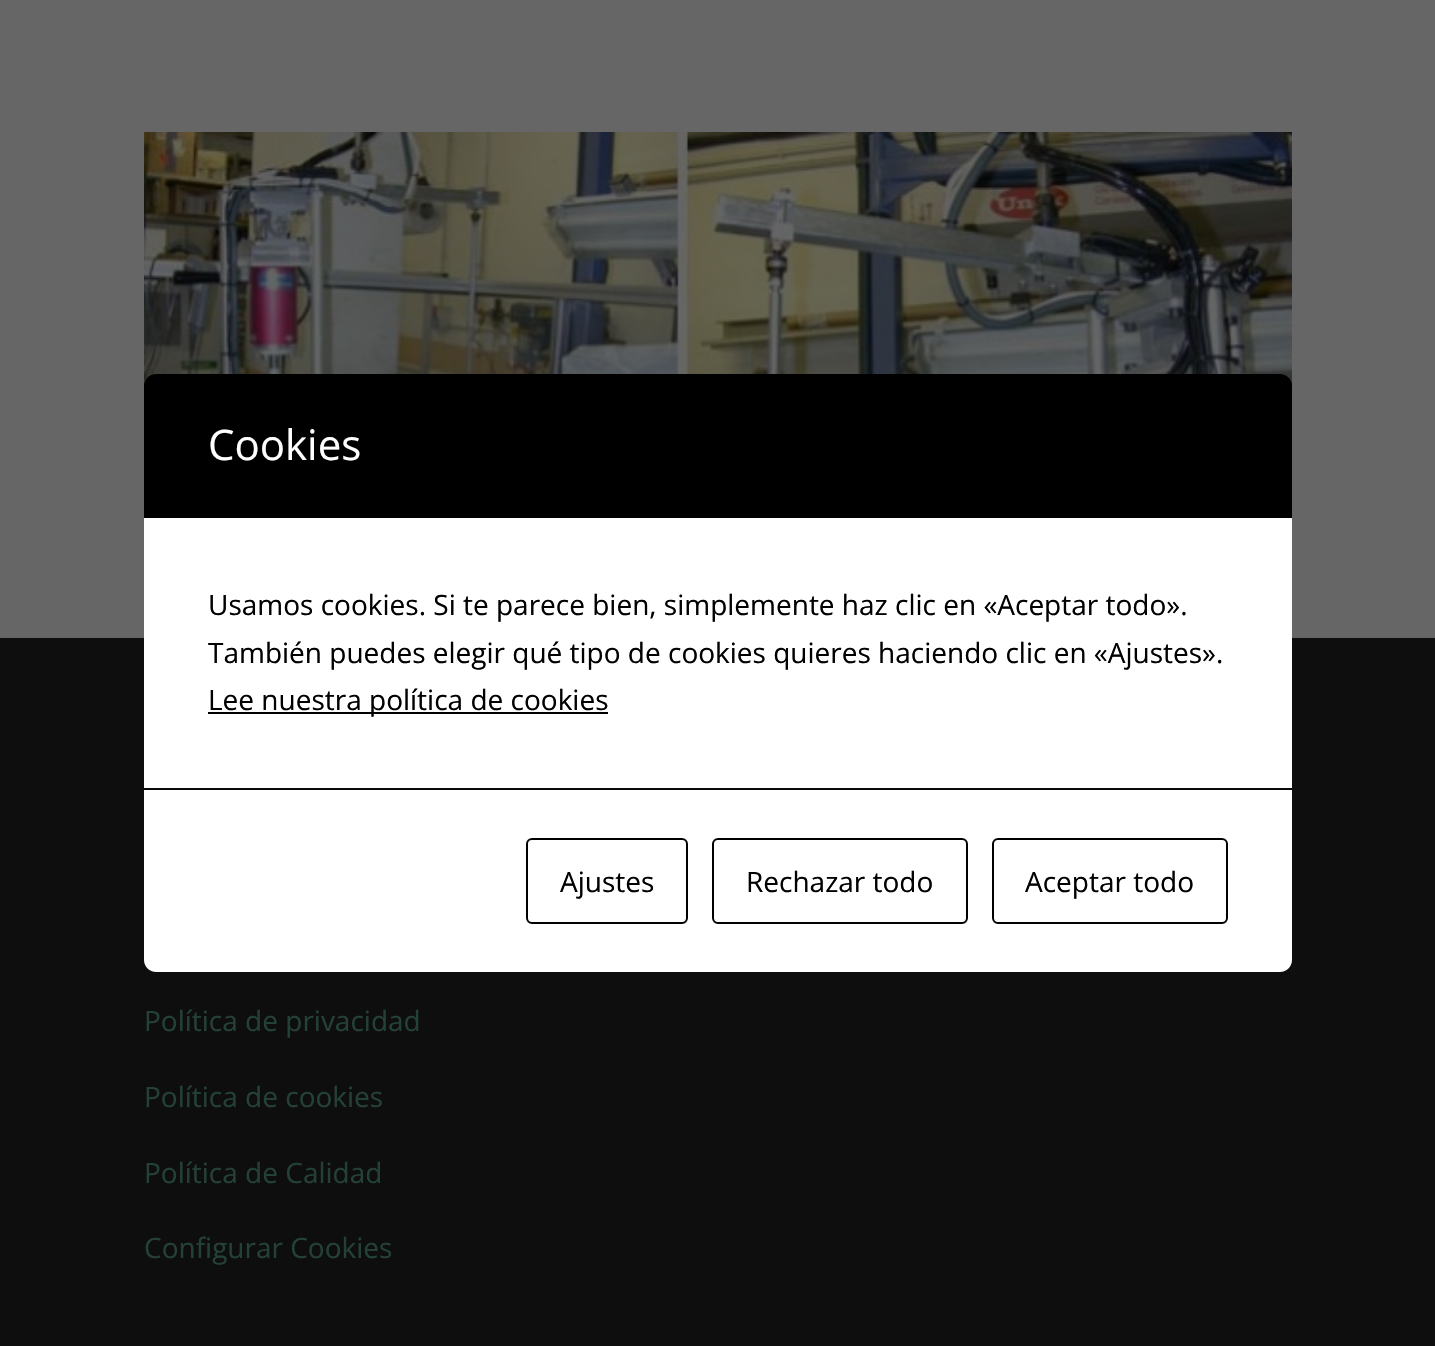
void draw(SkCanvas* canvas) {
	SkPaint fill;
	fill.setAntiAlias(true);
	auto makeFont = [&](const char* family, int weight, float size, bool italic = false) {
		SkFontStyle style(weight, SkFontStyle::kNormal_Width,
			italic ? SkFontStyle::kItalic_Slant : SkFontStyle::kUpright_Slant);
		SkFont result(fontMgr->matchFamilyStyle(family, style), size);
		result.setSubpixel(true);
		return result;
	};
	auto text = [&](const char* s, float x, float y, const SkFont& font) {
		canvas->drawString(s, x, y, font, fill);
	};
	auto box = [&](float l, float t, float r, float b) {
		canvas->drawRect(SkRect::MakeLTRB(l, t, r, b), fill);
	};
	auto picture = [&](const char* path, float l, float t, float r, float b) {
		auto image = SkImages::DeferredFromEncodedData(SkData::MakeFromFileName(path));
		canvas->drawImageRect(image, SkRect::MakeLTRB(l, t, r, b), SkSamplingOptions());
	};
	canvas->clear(0xFF666666);
	picture("image0.png", 144, 132, 1292, 386);
	fill.setColor(0xFF000000);
	canvas->drawPath(SkPathBuilder().moveTo(156, 374).lineTo(1280, 374).cubicTo(1286.5f, 374, 1292, 379.5f, 1292, 386).lineTo(1292, 518).lineTo(144, 518).lineTo(144, 386).cubicTo(144, 379.5f, 149.5f, 374, 156, 374).close().detach(), fill);
	fill.setColor(0xFF0E0E0E);
	box(0, 638, 1435, 1346);
	fill.setColor(0xFFFFFFFF);
	box(144, 518, 1292, 788);
	fill.setColor(0xFF000000);
	box(208, 712, 608, 714);
	fill.setColor(0xFFFFFFFF);
	canvas->drawPath(SkPathBuilder().moveTo(144, 788).lineTo(1292, 788).lineTo(1292, 960).cubicTo(1292, 966.5f, 1286.5f, 972, 1280, 972).lineTo(156, 972).cubicTo(149.5f, 972, 144, 966.5f, 144, 960).close().detach(), fill);
	fill.setColor(0xFF0A0A0A);
	box(144, 788, 1292, 790);
	fill.setStyle(SkPaint::kStroke_Style);
	fill.setStrokeWidth(2);
	fill.setColor(0xFF000000);
	canvas->drawRoundRect(SkRect::MakeLTRB(527, 839, 687, 923), 5, 5, fill);
	canvas->drawRoundRect(SkRect::MakeLTRB(713, 839, 967, 923), 5, 5, fill);
	canvas->drawRoundRect(SkRect::MakeLTRB(993, 839, 1227, 923), 5, 5, fill);
	auto font1 = makeFont("Open Sans", 400, 42);
	fill.setStyle(SkPaint::kFill_Style);
	fill.setColor(0xFFFFFFFF);
	text("Cookies", 208, 460, font1);
	auto font2 = makeFont("Open Sans", 400, 28);
	fill.setColor(0xFF000000);
	text("Usamos cookies. Si te parece bien, simplemente haz clic en «Aceptar todo».", 208, 615, font2);
	text("También puedes elegir qué tipo de cookies quieres haciendo clic en «Ajustes».", 208, 663, font2);
	text("Lee nuestra política de cookies", 208, 710, font2);
	text("Ajustes", 560, 892, font2);
	text("Rechazar todo", 746, 892, font2);
	text("Aceptar todo", 1025, 892, font2);
	fill.setColor(0xFF244138);
	text("Política de privacidad", 144, 1031, font2);
	text("Política de cookies", 144, 1107, font2);
	text("Política de Calidad", 144, 1183, font2);
	text("Configurar Cookies", 144, 1258, font2);
}
